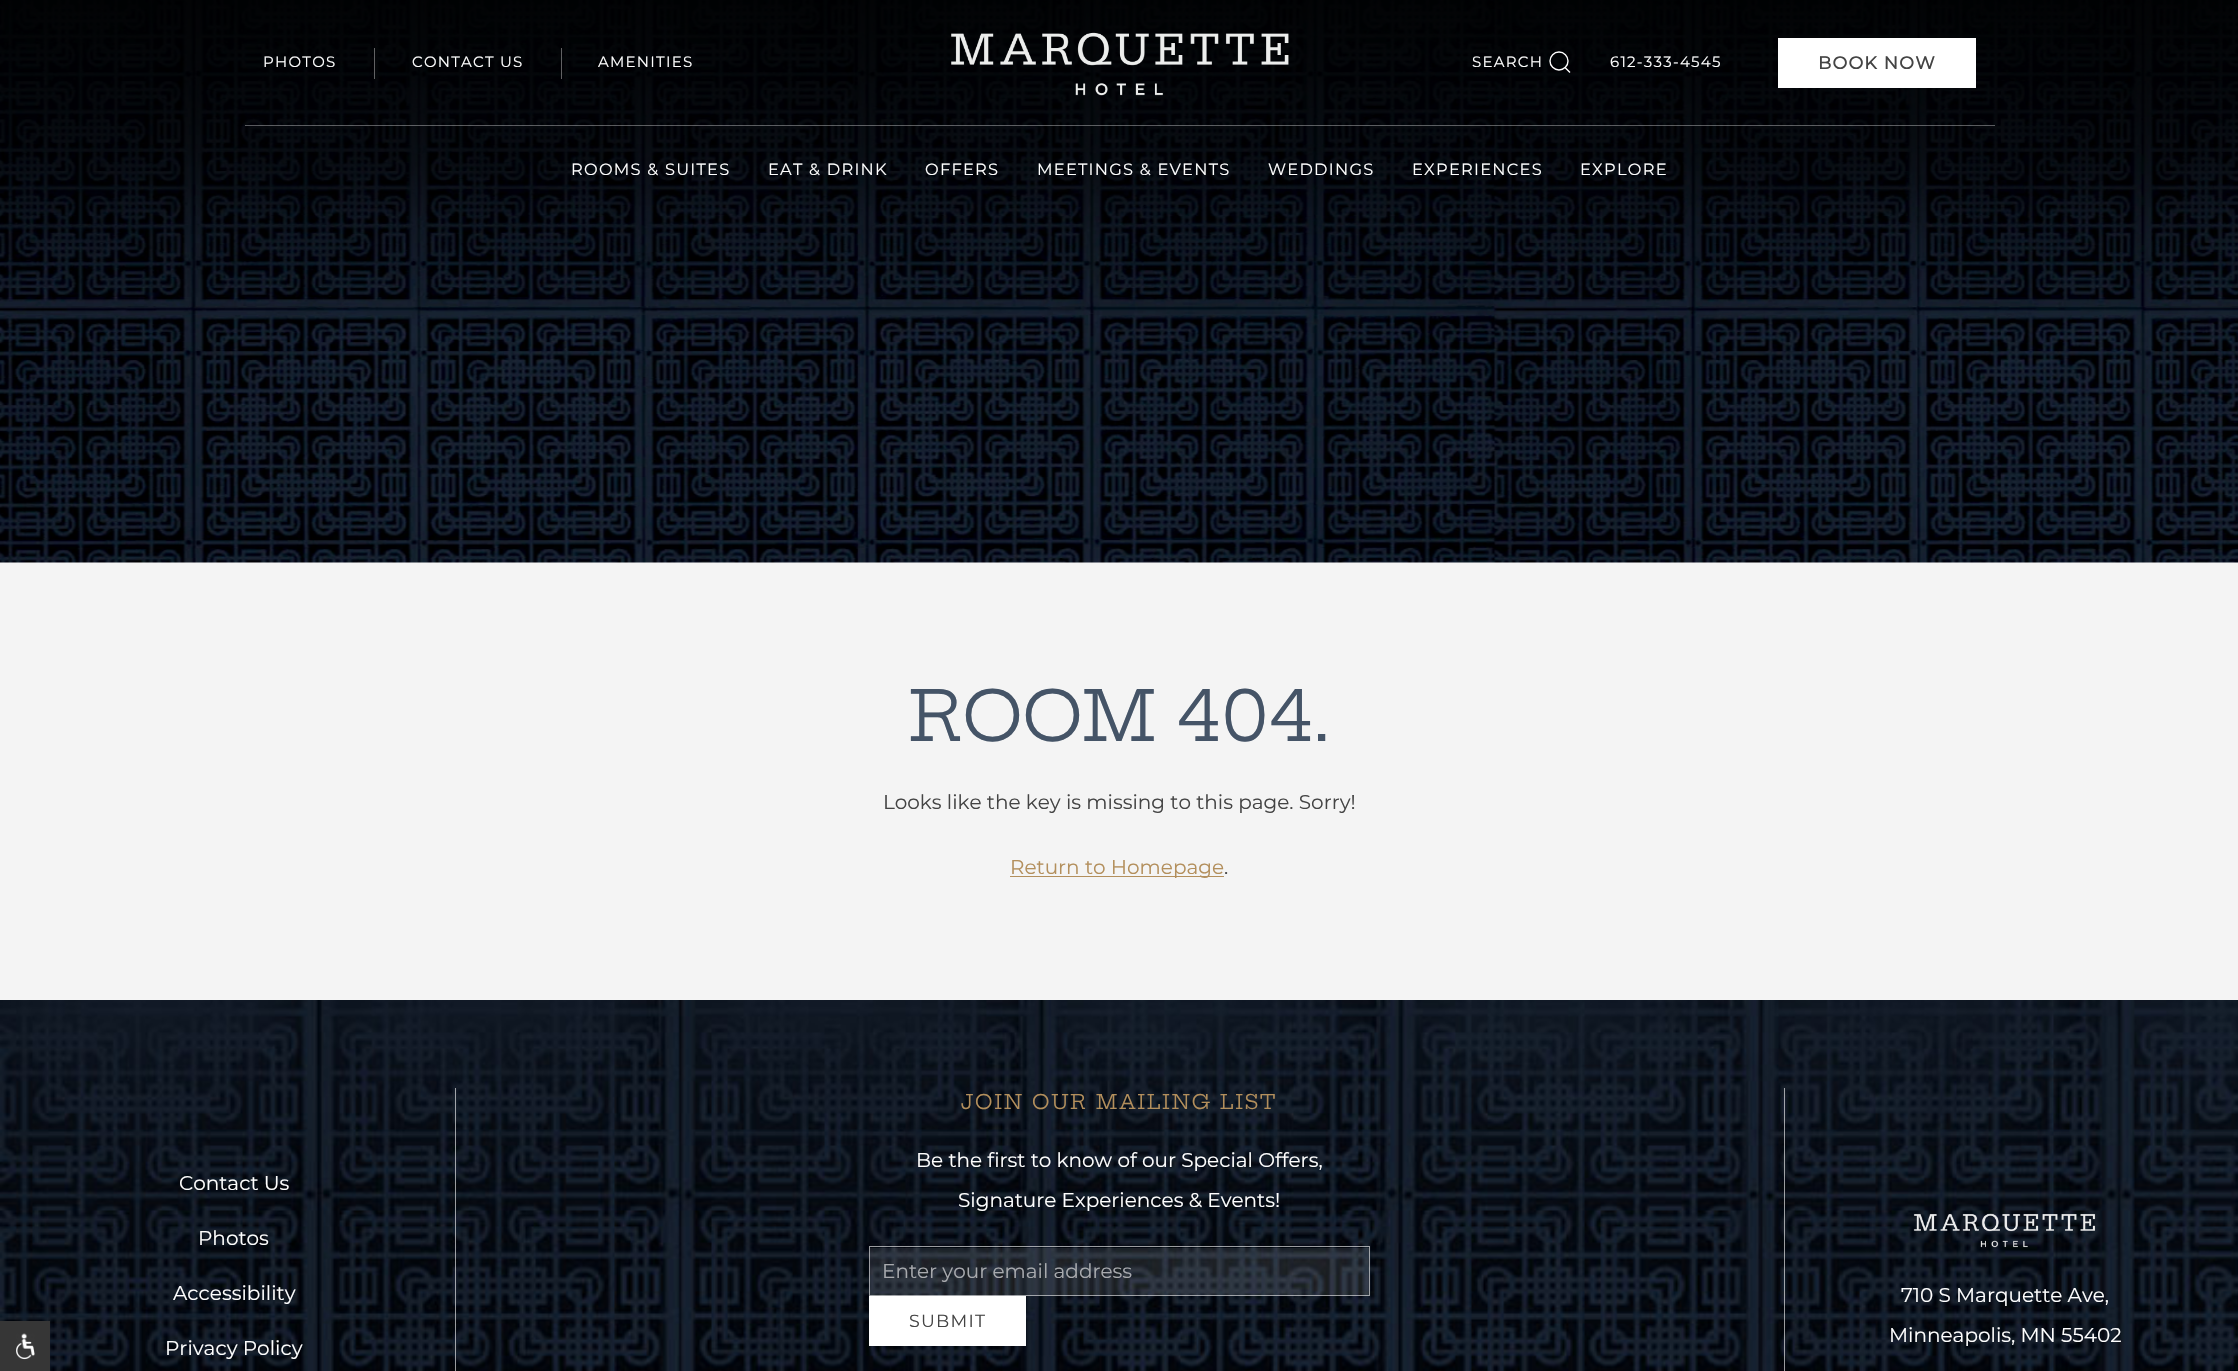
void draw(SkCanvas* canvas) {
	SkPaint fill;
	fill.setAntiAlias(true);
	auto makeFont = [&](const char* family, int weight, float size, bool italic = false) {
		SkFontStyle style(weight, SkFontStyle::kNormal_Width,
			italic ? SkFontStyle::kItalic_Slant : SkFontStyle::kUpright_Slant);
		SkFont result(fontMgr->matchFamilyStyle(family, style), size);
		result.setSubpixel(true);
		return result;
	};
	auto text = [&](const char* s, float x, float y, const SkFont& font) {
		canvas->drawString(s, x, y, font, fill);
	};
	auto spacedText = [&](const char* s, float x, float y, const SkFont& font, const SkPaint& ink, float letter, float word) {
		std::vector<SkGlyphID> glyphs(font.countText(s, strlen(s), SkTextEncoding::kUTF8));
		std::vector<float> xs(glyphs.size());
		font.textToGlyphs(s, strlen(s), SkTextEncoding::kUTF8, glyphs);
		font.getXPos(glyphs, xs, x);
		float extra = 0;
		for (size_t i = 0; i < glyphs.size(); i++) {
			xs[i] += extra;
			extra += letter + word * (glyphs[i] == font.unicharToGlyph(' '));
		}
		canvas->drawTextBlob(SkTextBlob::MakeFromPosHGlyphs(glyphs, xs, y, font), 0, 0, ink);
	};
	auto box = [&](float l, float t, float r, float b) {
		canvas->drawRect(SkRect::MakeLTRB(l, t, r, b), fill);
	};
	auto picture = [&](const char* path, float l, float t, float r, float b) {
		auto image = SkImages::DeferredFromEncodedData(SkData::MakeFromFileName(path));
		canvas->drawImageRect(image, SkRect::MakeLTRB(l, t, r, b), SkSamplingOptions());
	};
	canvas->clear(0xFFF4F4F4);
	picture("image3.png", 0, 1000, 2238, 1371);
	fill.setColor(0xFF363636);
	box(0, 1321, 50, 1371);
	picture("image0.png", 16, 1333, 35, 1360);
	picture("image2.png", 0, 0, 2238, 563);
	fill.setColor(0x87B6B6B6);
	box(374, 48, 375, 79);
	box(561, 48, 562, 79);
	picture("image1.png", 951, 32, 1289, 96);
	fill.setStyle(SkPaint::kStroke_Style);
	fill.setStrokeWidth(1.4f);
	fill.setColor(0xFFFFFFFF);
	canvas->drawCircle(1559, 61, 9, fill);
	canvas->drawPath(SkPathBuilder().moveTo(1565, 67.5f).lineTo(1570, 72.5f).close().detach(), fill);
	fill.setStyle(SkPaint::kFill_Style);
	box(1778, 38, 1976, 88);
	fill.setColor(0x59FFFFFF);
	box(245, 125, 1995, 126);
	fill.setColor(0xFFB38F5C);
	box(1010, 876, 1224, 877);
	fill.setColor(0x99FFFFFF);
	box(455, 1088, 456, 1371);
	fill.setColor(0x1AFFFFFF);
	box(870, 1248, 1369, 1295);
	fill.setStyle(SkPaint::kStroke_Style);
	fill.setStrokeWidth(1);
	fill.setColor(0x99FFFFFF);
	canvas->drawRect(SkRect::MakeLTRB(869.5f, 1246.5f, 1369.5f, 1295.5f), fill);
	fill.setStyle(SkPaint::kFill_Style);
	fill.setColor(0xFFFFFFFF);
	box(869, 1296, 1026, 1346);
	fill.setColor(0x99FFFFFF);
	box(1784, 1088, 1785, 1371);
	picture("image4.png", 1913, 1213, 2096, 1248);
	auto font1 = makeFont("Montserrat", 100, 15);
	fill.setColor(0xFFFFFFFF);
	spacedText("PHOTOS", 263, 67, font1, fill, 1.25f, 0);
	spacedText("CONTACT US", 412, 67, font1, fill, 1.25f, 0);
	spacedText("AMENITIES", 598, 67, font1, fill, 1.25f, 0);
	spacedText("SEARCH", 1472, 67, font1, fill, 1.25f, 0);
	spacedText("612-333-4545", 1610, 67, font1, fill, 1.25f, 0);
	auto font2 = makeFont("Montserrat", 700, 17.5f);
	fill.setColor(0xFF444444);
	spacedText("BOOK NOW", 1818, 69, font2, fill, 1.25f, 0);
	auto font3 = makeFont("Montserrat", 100, 16.25f);
	fill.setColor(0xFFFFFFFF);
	spacedText("ROOMS & SUITES", 571, 175, font3, fill, 1.25f, 0);
	spacedText("EAT & DRINK", 768, 175, font3, fill, 1.25f, 0);
	spacedText("OFFERS", 925, 175, font3, fill, 1.25f, 0);
	spacedText("MEETINGS & EVENTS", 1037, 175, font3, fill, 1.25f, 0);
	spacedText("WEDDINGS", 1268, 175, font3, fill, 1.25f, 0);
	spacedText("EXPERIENCES", 1412, 175, font3, fill, 1.25f, 0);
	spacedText("EXPLORE", 1580, 175, font3, fill, 1.25f, 0);
	auto font4 = makeFont("Hepta Slab", 200, 69);
	fill.setColor(0xFF455467);
	text("ROOM 404.", 909, 741, font4);
	auto font5 = makeFont("Montserrat", 100, 20);
	fill.setColor(0xFF444444);
	text("Looks like the key is missing to this page. Sorry!", 883, 809, font5);
	fill.setColor(0xFFB38F5C);
	text("Return to Homepage", 1010, 874, font5);
	fill.setColor(0xFF444444);
	text(".", 1224, 874, font5);
	fill.setColor(0xFFFFFFFF);
	text("Contact Us", 179, 1190, font5);
	text("Photos", 198, 1245, font5);
	text("Accessibility", 173, 1300, font5);
	text("Privacy Policy", 165, 1355, font5);
	auto font6 = makeFont("Hepta Slab", 200, 20);
	fill.setColor(0xFFB38F5C);
	spacedText("JOIN OUR MAILING LIST", 961, 1109, font6, fill, 2, 0);
	fill.setColor(0xFFFFFFFF);
	text("Be the first to know of our Special Offers,", 916, 1167, font5);
	text("Signature Experiences & Events!", 958, 1207, font5);
	fill.setColor(0xFFA8AAAE);
	text("Enter your email address", 882, 1278, font5);
	auto font7 = makeFont("Montserrat", 100, 17.5f);
	fill.setColor(0xFF444444);
	spacedText("SUBMIT", 909, 1327, font7, fill, 1.25f, 0);
	fill.setColor(0xFFFFFFFF);
	text("710 S Marquette Ave,", 1901, 1302, font5);
	text("Minneapolis, MN 55402", 1889, 1342, font5);
}
